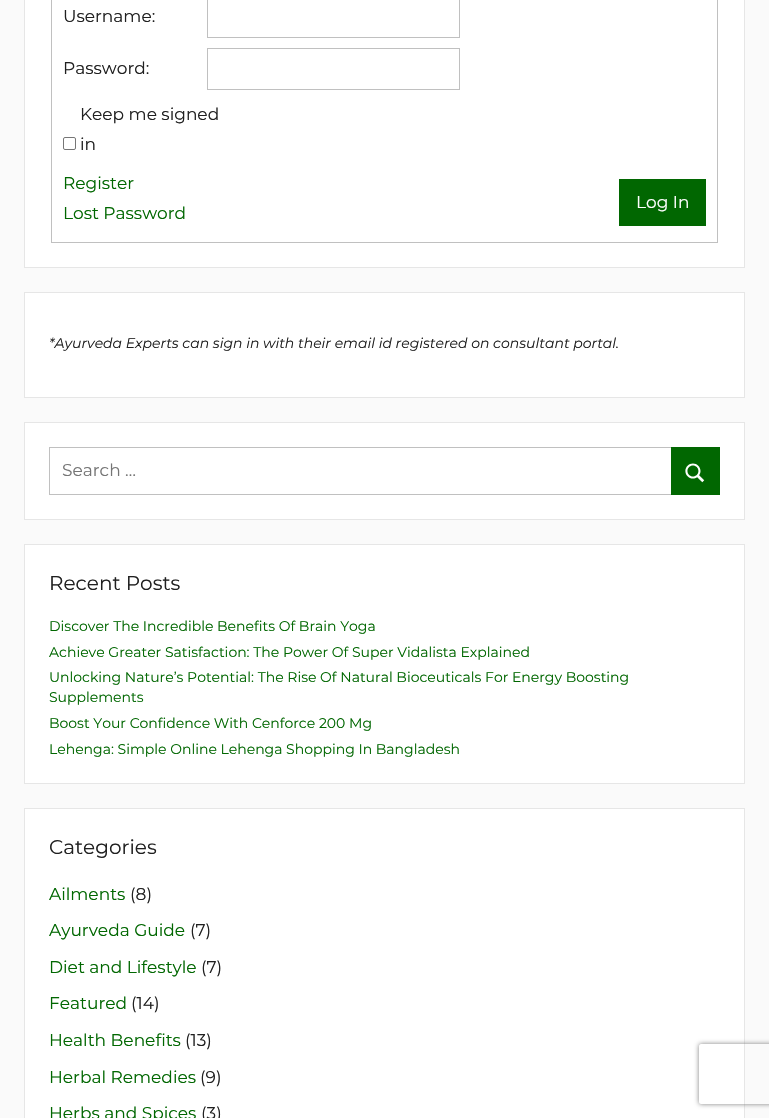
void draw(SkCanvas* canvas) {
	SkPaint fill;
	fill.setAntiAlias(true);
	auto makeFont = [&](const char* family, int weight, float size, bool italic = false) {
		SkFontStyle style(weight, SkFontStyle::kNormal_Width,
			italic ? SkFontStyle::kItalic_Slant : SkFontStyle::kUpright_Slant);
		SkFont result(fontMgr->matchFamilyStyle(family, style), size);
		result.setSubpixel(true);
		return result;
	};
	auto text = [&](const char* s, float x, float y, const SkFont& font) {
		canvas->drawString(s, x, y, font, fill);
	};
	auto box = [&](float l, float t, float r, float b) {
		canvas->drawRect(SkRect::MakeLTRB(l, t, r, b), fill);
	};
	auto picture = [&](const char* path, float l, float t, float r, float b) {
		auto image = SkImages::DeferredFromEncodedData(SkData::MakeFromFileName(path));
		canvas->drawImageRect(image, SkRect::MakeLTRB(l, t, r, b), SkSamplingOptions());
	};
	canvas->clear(0xFFFAFAFA);
	fill.setColor(0xFFFFFFFF);
	canvas->drawRect(SkRect::MakeLTRB(24.5f, -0.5f, 744.5f, 267.5f), fill);
	fill.setStyle(SkPaint::kStroke_Style);
	fill.setStrokeWidth(1);
	fill.setColor(0xFFE6E6E6);
	canvas->drawRect(SkRect::MakeLTRB(24.5f, -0.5f, 744.5f, 267.5f), fill);
	fill.setColor(0xFFC0C0C0);
	canvas->drawRect(SkRect::MakeLTRB(51.5f, -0.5f, 717.5f, 242.5f), fill);
	canvas->drawRect(SkRect::MakeLTRB(207.5f, -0.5f, 459.5f, 37.5f), fill);
	canvas->drawRect(SkRect::MakeLTRB(207.5f, 48.5f, 459.5f, 89.5f), fill);
	fill.setColor(0xFF767676);
	canvas->drawRoundRect(SkRect::MakeLTRB(63.5f, 137.5f, 75.5f, 149.5f), 1.5f, 1.5f, fill);
	fill.setStyle(SkPaint::kFill_Style);
	fill.setColor(0xFF016701);
	box(619, 179, 706, 226);
	fill.setColor(0xFFFFFFFF);
	canvas->drawRect(SkRect::MakeLTRB(24.5f, 292.5f, 744.5f, 397.5f), fill);
	fill.setStyle(SkPaint::kStroke_Style);
	fill.setColor(0xFFE6E6E6);
	canvas->drawRect(SkRect::MakeLTRB(24.5f, 292.5f, 744.5f, 397.5f), fill);
	fill.setStyle(SkPaint::kFill_Style);
	fill.setColor(0xFFFFFFFF);
	canvas->drawRect(SkRect::MakeLTRB(24.5f, 422.5f, 744.5f, 519.5f), fill);
	fill.setStyle(SkPaint::kStroke_Style);
	fill.setColor(0xFFE6E6E6);
	canvas->drawRect(SkRect::MakeLTRB(24.5f, 422.5f, 744.5f, 519.5f), fill);
	fill.setColor(0xFFC0C0C0);
	canvas->drawRect(SkRect::MakeLTRB(49.5f, 447.5f, 719.5f, 494.5f), fill);
	fill.setStyle(SkPaint::kFill_Style);
	fill.setColor(0xFF016701);
	box(671, 447, 720, 495);
	picture("image0.png", 685, 463, 705, 483);
	fill.setColor(0xFFFFFFFF);
	canvas->drawRect(SkRect::MakeLTRB(24.5f, 544.5f, 744.5f, 783.5f), fill);
	fill.setStyle(SkPaint::kStroke_Style);
	fill.setColor(0xFFE6E6E6);
	canvas->drawRect(SkRect::MakeLTRB(24.5f, 544.5f, 744.5f, 783.5f), fill);
	fill.setStyle(SkPaint::kFill_Style);
	fill.setColor(0xFFFFFFFF);
	canvas->drawRect(SkRect::MakeLTRB(24.5f, 808.5f, 744.5f, 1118.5f), fill);
	fill.setStyle(SkPaint::kStroke_Style);
	fill.setColor(0xFFE6E6E6);
	canvas->drawRect(SkRect::MakeLTRB(24.5f, 808.5f, 744.5f, 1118.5f), fill);
	canvas->save();
	canvas->clipPath(SkPathBuilder(SkPathFillType::kEvenOdd).moveTo(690, 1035).lineTo(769, 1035).lineTo(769, 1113).lineTo(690, 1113).close().moveTo(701, 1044).lineTo(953, 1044).cubicTo(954, 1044, 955, 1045, 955, 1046).lineTo(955, 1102).cubicTo(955, 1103, 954, 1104, 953, 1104).lineTo(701, 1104).cubicTo(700, 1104, 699, 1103, 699, 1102).lineTo(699, 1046).cubicTo(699, 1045, 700, 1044, 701, 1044).close().detach(), true);
	fill.setStyle(SkPaint::kFill_Style);
	fill.setColor(0xFF808080);
	fill.setMaskFilter(SkMaskFilter::MakeBlur(kNormal_SkBlurStyle, 2.5f));
	canvas->drawRoundRect(SkRect::MakeLTRB(699, 1044, 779, 1104), 2, 2, fill);
	fill.setMaskFilter(nullptr);
	canvas->restore();
	auto font1 = makeFont("Montserrat", 400, 17);
	fill.setColor(0xFF202020);
	text("Username:", 63, 22, font1);
	text("Password:", 63, 74, font1);
	text("Keep me signed", 80, 120, font1);
	text("in", 80, 150, font1);
	fill.setColor(0xFF016701);
	text("Register", 63, 189, font1);
	text("Lost Password", 63, 219, font1);
	fill.setColor(0xFFFFFFFF);
	text("Log In", 636, 208, font1);
	auto font2 = makeFont("Montserrat", 400, 14, true);
	fill.setColor(0xFF202020);
	text("*Ayurveda Experts can sign in with their email id registered on consultant portal.", 49, 348, font2);
	fill.setColor(0xFF757575);
	text("Search …", 62, 476, font1);
	auto font3 = makeFont("Montserrat", 400, 20);
	fill.setColor(0xFF202020);
	text("Recent Posts", 49, 590, font3);
	auto font4 = makeFont("Montserrat", 400, 14);
	fill.setColor(0xFF016701);
	text("Discover The Incredible Benefits Of Brain Yoga", 49, 631, font4);
	text("Achieve Greater Satisfaction: The Power Of Super Vidalista Explained", 49, 657, font4);
	text("Unlocking Nature’s Potential: The Rise Of Natural Bioceuticals For Energy Boosting", 49, 682, font4);
	text("Supplements", 49, 702, font4);
	text("Boost Your Confidence With Cenforce 200 Mg", 49, 728, font4);
	text("Lehenga: Simple Online Lehenga Shopping In Bangladesh", 49, 754, font4);
	fill.setColor(0xFF202020);
	text("Categories", 49, 854, font3);
	fill.setColor(0xFF016701);
	text("Ailments", 49, 900, font1);
	fill.setColor(0xFF202020);
	text("(8)", 130, 900, font1);
	fill.setColor(0xFF016701);
	text("Ayurveda Guide", 49, 936, font1);
	fill.setColor(0xFF202020);
	text("(7)", 190, 936, font1);
	fill.setColor(0xFF016701);
	text("Diet and Lifestyle", 49, 973, font1);
	fill.setColor(0xFF202020);
	text("(7)", 201, 973, font1);
	fill.setColor(0xFF016701);
	text("Featured", 49, 1009, font1);
	fill.setColor(0xFF202020);
	text("(14)", 131, 1009, font1);
	fill.setColor(0xFF016701);
	text("Health Benefits", 49, 1046, font1);
	fill.setColor(0xFF202020);
	text("(13)", 185, 1046, font1);
	fill.setColor(0xFF016701);
	text("Herbal Remedies", 49, 1083, font1);
	fill.setColor(0xFF202020);
	text("(9)", 200, 1083, font1);
	fill.setColor(0xFF016701);
	text("Herbs and Spices", 49, 1119, font1);
	fill.setColor(0xFF202020);
	text("(3)", 201, 1119, font1);
}
